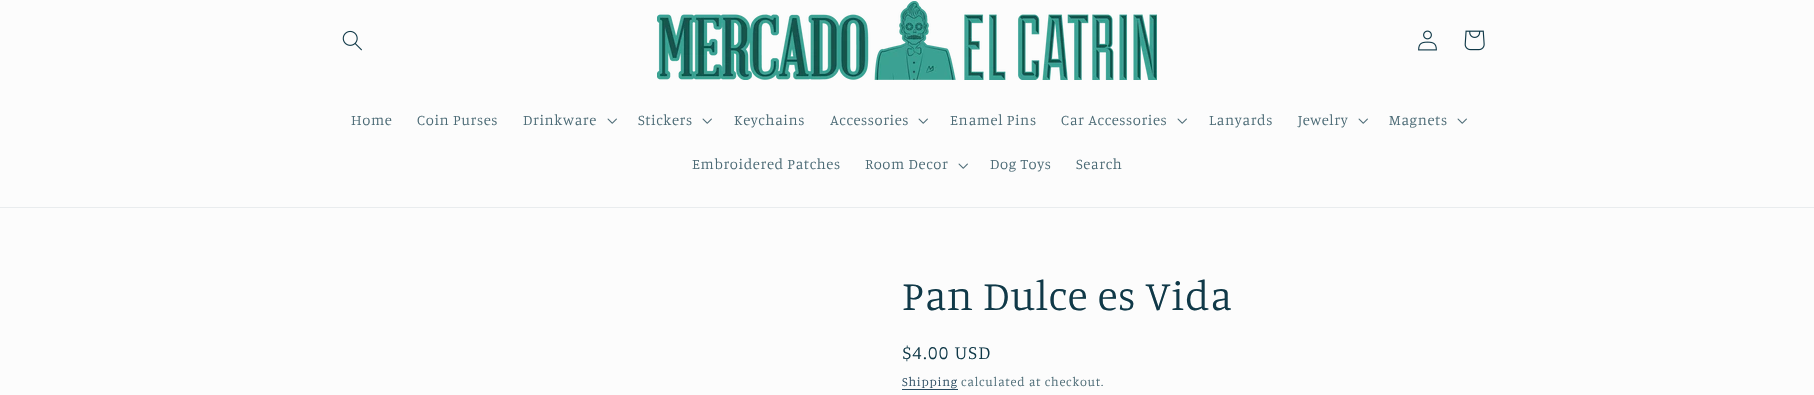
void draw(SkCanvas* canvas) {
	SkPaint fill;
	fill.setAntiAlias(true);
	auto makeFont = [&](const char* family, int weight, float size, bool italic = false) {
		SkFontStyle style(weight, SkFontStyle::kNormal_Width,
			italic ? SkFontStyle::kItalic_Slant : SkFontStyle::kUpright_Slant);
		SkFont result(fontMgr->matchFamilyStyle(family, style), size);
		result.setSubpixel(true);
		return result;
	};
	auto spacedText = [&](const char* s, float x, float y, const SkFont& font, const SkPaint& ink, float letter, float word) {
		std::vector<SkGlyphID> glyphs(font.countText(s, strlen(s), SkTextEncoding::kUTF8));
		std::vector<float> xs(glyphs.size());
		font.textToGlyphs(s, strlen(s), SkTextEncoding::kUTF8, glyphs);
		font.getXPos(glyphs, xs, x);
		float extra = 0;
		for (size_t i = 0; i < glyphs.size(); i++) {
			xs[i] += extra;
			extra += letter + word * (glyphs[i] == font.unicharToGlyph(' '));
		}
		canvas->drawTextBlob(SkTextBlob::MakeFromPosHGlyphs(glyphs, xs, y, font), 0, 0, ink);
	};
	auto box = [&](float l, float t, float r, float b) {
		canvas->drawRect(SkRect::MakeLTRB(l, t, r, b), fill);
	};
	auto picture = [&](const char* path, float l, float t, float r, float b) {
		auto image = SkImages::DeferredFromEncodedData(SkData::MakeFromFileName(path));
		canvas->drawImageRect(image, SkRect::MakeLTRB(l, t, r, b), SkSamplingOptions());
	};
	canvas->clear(0xFFFCFCFC);
	fill.setColor(0xFFE9ECEE);
	box(0, 207, 1814, 208);
	picture("image0.png", 342, 30, 362, 51);
	picture("image1.png", 657, 1, 1157, 80);
	picture("image2.png", 1418, 30, 1437, 51);
	picture("image3.png", 1464, 30, 1485, 51);
	picture("image4.png", 607, 118, 617, 124);
	picture("image4.png", 702, 118, 712, 124);
	picture("image4.png", 918, 118, 928, 124);
	picture("image4.png", 1177, 118, 1187, 124);
	picture("image4.png", 1358, 118, 1368, 124);
	picture("image4.png", 1457, 118, 1467, 124);
	picture("image4.png", 958, 163, 968, 169);
	fill.setColor(0xFF2A4B61);
	box(902, 389, 958, 390);
	auto font1 = makeFont("Manuale", 300, 14.75f);
	fill.setColor(0xFF4B6A75);
	spacedText("Home", 351, 125, font1, fill, 0.6f, 0);
	spacedText("Coin Purses", 417, 125, font1, fill, 0.6f, 0);
	spacedText("Drinkware", 523, 125, font1, fill, 0.6f, 0);
	spacedText("Stickers", 638, 125, font1, fill, 0.6f, 0);
	spacedText("Keychains", 734, 125, font1, fill, 0.6f, 0);
	spacedText("Accessories", 830, 125, font1, fill, 0.6f, 0);
	spacedText("Enamel Pins", 950, 125, font1, fill, 0.6f, 0);
	spacedText("Car Accessories", 1061, 125, font1, fill, 0.6f, 0);
	spacedText("Lanyards", 1209, 125, font1, fill, 0.6f, 0);
	spacedText("Jewelry", 1298, 125, font1, fill, 0.6f, 0);
	spacedText("Magnets", 1389, 125, font1, fill, 0.6f, 0);
	spacedText("Embroidered Patches", 692, 169, font1, fill, 0.6f, 0);
	spacedText("Room Decor", 865, 169, font1, fill, 0.6f, 0);
	spacedText("Dog Toys", 990, 169, font1, fill, 0.6f, 0);
	spacedText("Search", 1076, 169, font1, fill, 0.6f, 0);
	auto font2 = makeFont("Manuale", 300, 42);
	fill.setColor(0xFF103948);
	spacedText("Pan Dulce es Vida", 902, 310, font2, fill, 0.6f, 0);
	auto font3 = makeFont("Manuale", 300, 19);
	spacedText("$4.00 USD", 902, 359, font3, fill, 1.25f, 0);
	auto font4 = makeFont("Manuale", 300, 12.6f);
	fill.setColor(0xFF2A4B61);
	spacedText("Shipping", 902, 386, font4, fill, 0.75f, 0);
	fill.setColor(0xFF4B6A75);
	spacedText("calculated at checkout.", 961, 386, font4, fill, 0.75f, 0);
}
